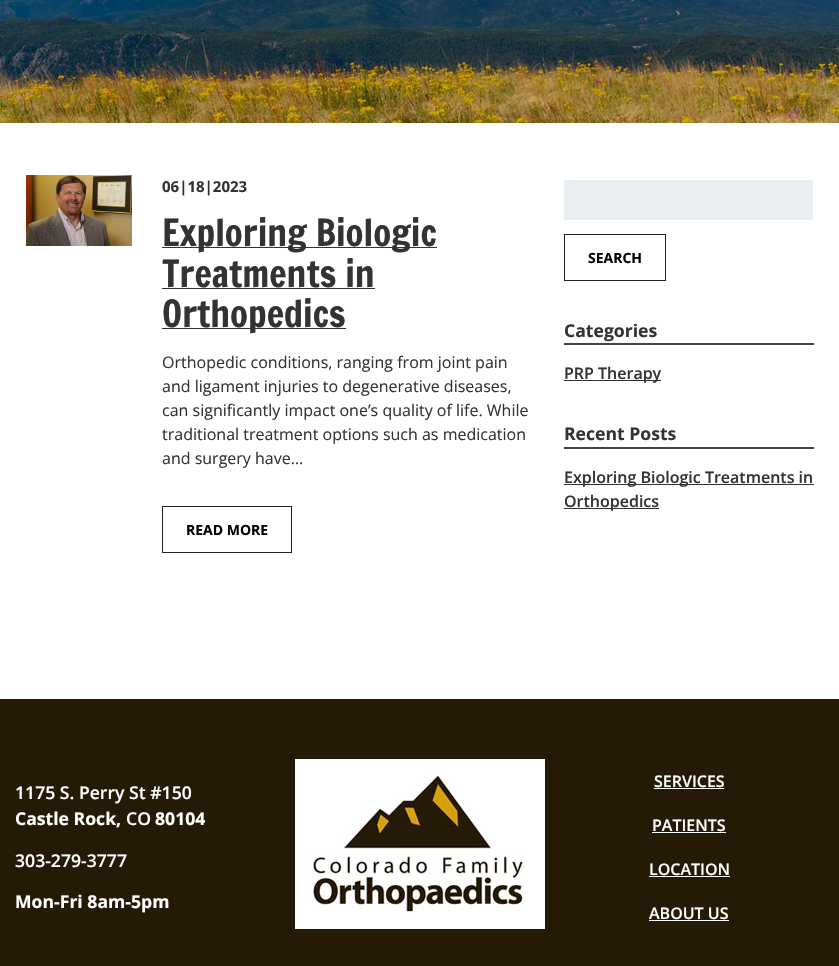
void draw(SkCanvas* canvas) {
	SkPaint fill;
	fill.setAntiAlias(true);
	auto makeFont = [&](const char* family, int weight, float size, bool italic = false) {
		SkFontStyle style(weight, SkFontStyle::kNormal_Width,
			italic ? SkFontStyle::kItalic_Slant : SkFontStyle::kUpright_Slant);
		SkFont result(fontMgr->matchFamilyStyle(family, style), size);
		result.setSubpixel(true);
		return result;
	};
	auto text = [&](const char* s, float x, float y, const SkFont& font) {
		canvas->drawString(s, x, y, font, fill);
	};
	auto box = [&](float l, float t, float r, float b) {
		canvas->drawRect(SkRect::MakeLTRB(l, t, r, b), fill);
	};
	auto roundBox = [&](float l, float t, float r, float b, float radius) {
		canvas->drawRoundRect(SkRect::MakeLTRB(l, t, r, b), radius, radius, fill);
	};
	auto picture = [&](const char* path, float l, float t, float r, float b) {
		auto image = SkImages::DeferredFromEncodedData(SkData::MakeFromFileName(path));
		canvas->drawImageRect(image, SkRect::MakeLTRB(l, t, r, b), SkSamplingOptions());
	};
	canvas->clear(0xFFFFFFFF);
	picture("image0.png", 0, 0, 839, 123);
	picture("image1.png", 26, 175, 132, 246);
	fill.setColor(0xFF333333);
	box(162, 247, 437, 248);
	box(162, 288, 375, 289);
	box(162, 328, 346, 329);
	fill.setStyle(SkPaint::kStroke_Style);
	fill.setStrokeWidth(1);
	fill.setColor(0xFF222222);
	canvas->drawRect(SkRect::MakeLTRB(162.5f, 506.5f, 291.5f, 552.5f), fill);
	fill.setStyle(SkPaint::kFill_Style);
	fill.setColor(0xFFEAEDF2);
	roundBox(564, 180, 813, 220, 3);
	fill.setStyle(SkPaint::kStroke_Style);
	fill.setColor(0xFF222222);
	canvas->drawRect(SkRect::MakeLTRB(564.5f, 234.5f, 665.5f, 280.5f), fill);
	fill.setStyle(SkPaint::kFill_Style);
	fill.setColor(0xFF444444);
	box(564, 343, 814, 345);
	fill.setColor(0xFF333333);
	box(564, 380, 661, 381);
	fill.setColor(0xFF444444);
	box(564, 447, 814, 449);
	fill.setColor(0xFF333333);
	box(564, 484, 814, 485);
	box(564, 508, 659, 509);
	fill.setColor(0xFF251A06);
	box(0, 699, 839, 966);
	picture("image2.png", 295, 759, 545, 929);
	fill.setColor(0xFFFFFFFF);
	box(654, 788, 724, 789);
	box(652, 832, 726, 833);
	box(649, 876, 730, 877);
	box(649, 920, 729, 921);
	auto font1 = makeFont("Open Sans", 700, 15);
	fill.setColor(0xFF333333);
	text("06|18|2023", 162, 192, font1);
	auto font2 = makeFont("Francois One", 400, 36.75f);
	text("Exploring Biologic", 162, 246, font2);
	text("Treatments in", 162, 287, font2);
	text("Orthopedics", 162, 327, font2);
	auto font3 = makeFont("Open Sans", 400, 16);
	text("Orthopedic conditions, ranging from joint pain", 162, 368, font3);
	text("and ligament injuries to degenerative diseases,", 162, 392, font3);
	text("can significantly impact one’s quality of life. While", 162, 416, font3);
	text("traditional treatment options such as medication", 162, 440, font3);
	text("and surgery have...", 162, 464, font3);
	auto font4 = makeFont("Open Sans", 700, 14);
	fill.setColor(0xFF000000);
	text("READ MORE", 186, 535, font4);
	text("SEARCH", 588, 263, font4);
	auto font5 = makeFont("Open Sans", 700, 17.6f);
	fill.setColor(0xFF333333);
	text("Categories", 564, 337, font5);
	auto font6 = makeFont("Open Sans", 600, 16);
	text("PRP Therapy", 564, 379, font6);
	text("Recent Posts", 564, 440, font5);
	text("Exploring Biologic Treatments in", 564, 483, font6);
	text("Orthopedics", 564, 507, font6);
	auto font7 = makeFont("Open Sans", 600, 17.6f);
	fill.setColor(0xFFFFFFFF);
	text("1175 S. Perry St #150", 15, 799, font7);
	text("Castle Rock,", 15, 825, font5);
	text("CO", 126, 825, font7);
	text("80104", 155, 825, font5);
	text("303-279-3777", 15, 867, font7);
	text("Mon-Fri 8am-5pm", 15, 908, font5);
	text("SERVICES", 654, 787, font6);
	text("PATIENTS", 652, 831, font6);
	text("LOCATION", 649, 875, font6);
	text("ABOUT US", 649, 919, font6);
}
